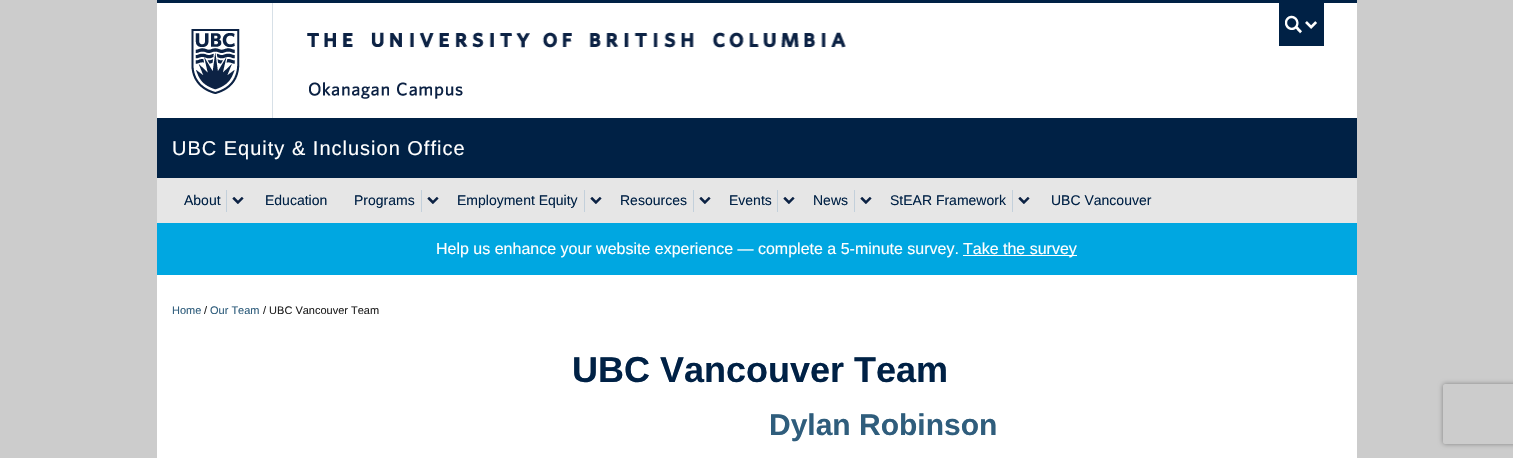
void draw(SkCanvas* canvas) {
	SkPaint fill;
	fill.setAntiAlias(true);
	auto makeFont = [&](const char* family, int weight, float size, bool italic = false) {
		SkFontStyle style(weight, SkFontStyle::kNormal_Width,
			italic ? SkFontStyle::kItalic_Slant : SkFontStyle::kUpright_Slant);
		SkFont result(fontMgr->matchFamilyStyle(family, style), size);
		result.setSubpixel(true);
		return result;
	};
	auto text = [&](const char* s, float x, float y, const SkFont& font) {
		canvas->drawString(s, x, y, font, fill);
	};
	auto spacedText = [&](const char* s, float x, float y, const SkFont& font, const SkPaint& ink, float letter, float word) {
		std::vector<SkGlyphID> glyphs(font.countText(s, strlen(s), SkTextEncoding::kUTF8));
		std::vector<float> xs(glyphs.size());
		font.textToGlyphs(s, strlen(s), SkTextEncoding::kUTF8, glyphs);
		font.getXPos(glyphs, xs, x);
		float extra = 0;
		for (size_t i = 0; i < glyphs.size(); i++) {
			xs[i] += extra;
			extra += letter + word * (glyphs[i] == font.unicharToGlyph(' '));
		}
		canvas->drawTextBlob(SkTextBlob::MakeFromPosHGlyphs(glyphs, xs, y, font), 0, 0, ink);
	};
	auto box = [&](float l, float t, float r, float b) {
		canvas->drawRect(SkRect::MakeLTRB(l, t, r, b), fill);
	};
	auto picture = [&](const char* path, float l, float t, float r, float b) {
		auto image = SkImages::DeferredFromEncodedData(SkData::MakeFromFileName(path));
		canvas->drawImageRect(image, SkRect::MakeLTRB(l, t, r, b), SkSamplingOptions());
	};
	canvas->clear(0xFFCCCCCC);
	fill.setColor(0xFFFFFFFF);
	box(157, 3, 1357, 118);
	fill.setColor(0xFF002145);
	box(157, 0, 1357, 3);
	picture("image0.png", 191, 29, 240, 94);
	picture("image1.png", 307, 32, 846, 48);
	fill.setColor(0xFFD7E0E7);
	box(272, 3, 273, 118);
	fill.setColor(0xFF002145);
	box(1279, 3, 1324, 46);
	picture("image2.png", 1285, 15, 1317, 34);
	picture("image3.png", 309, 82, 463, 99);
	box(157, 118, 1357, 178);
	fill.setColor(0xFFE6E6E6);
	box(157, 178, 1357, 223);
	fill.setColor(0xFFC3D0DB);
	box(226, 190, 227, 212);
	picture("image4.png", 232, 197, 244, 204);
	box(421, 190, 422, 212);
	picture("image4.png", 427, 197, 439, 204);
	box(584, 190, 585, 212);
	picture("image4.png", 590, 197, 602, 204);
	box(693, 190, 694, 212);
	picture("image4.png", 699, 197, 711, 204);
	box(777, 190, 778, 212);
	picture("image4.png", 783, 197, 795, 204);
	box(854, 190, 855, 212);
	picture("image4.png", 860, 197, 872, 204);
	box(1012, 190, 1013, 212);
	picture("image4.png", 1018, 197, 1030, 204);
	fill.setColor(0xFF00A7E1);
	box(157, 223, 1357, 275);
	fill.setColor(0xFFFFFFFF);
	box(963, 255, 1077, 256);
	box(157, 275, 1357, 458);
	canvas->save();
	canvas->clipPath(SkPathBuilder(SkPathFillType::kEvenOdd).moveTo(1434, 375).lineTo(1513, 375).lineTo(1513, 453).lineTo(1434, 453).close().moveTo(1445, 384).lineTo(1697, 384).cubicTo(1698, 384, 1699, 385, 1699, 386).lineTo(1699, 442).cubicTo(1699, 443, 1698, 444, 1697, 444).lineTo(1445, 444).cubicTo(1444, 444, 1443, 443, 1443, 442).lineTo(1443, 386).cubicTo(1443, 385, 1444, 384, 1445, 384).close().detach(), true);
	fill.setColor(0xFF808080);
	fill.setMaskFilter(SkMaskFilter::MakeBlur(kNormal_SkBlurStyle, 2.5f));
	canvas->drawRoundRect(SkRect::MakeLTRB(1443, 384, 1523, 444), 2, 2, fill);
	fill.setMaskFilter(nullptr);
	canvas->restore();
	auto font1 = makeFont("Liberation Sans", 400, 20);
	fill.setColor(0xFFFFFFFF);
	spacedText("UBC Equity & Inclusion Office", 172, 155, font1, fill, 1, 0);
	auto font2 = makeFont("Liberation Sans", 400, 14);
	fill.setColor(0xFF002145);
	text("About", 184, 205, font2);
	text("Education", 265, 205, font2);
	text("Programs", 354, 205, font2);
	text("Employment Equity", 457, 205, font2);
	text("Resources", 620, 205, font2);
	text("Events", 729, 205, font2);
	text("News", 813, 205, font2);
	text("StEAR Framework", 890, 205, font2);
	text("UBC Vancouver", 1051, 205, font2);
	auto font3 = makeFont("Liberation Sans", 400, 16);
	fill.setColor(0xFFFFFFFF);
	text("Help us enhance your website experience — complete a 5-minute survey.", 436, 254, font3);
	text("Take the survey", 963, 254, font3);
	auto font4 = makeFont("Liberation Sans", 400, 11);
	fill.setColor(0xFF2F5D7C);
	text("Home", 172, 314, font4);
	fill.setColor(0xFF222222);
	text("/", 204, 314, font4);
	fill.setColor(0xFF2F5D7C);
	text("Our Team", 210, 314, font4);
	fill.setColor(0xFF222222);
	text("/ UBC Vancouver Team", 263, 314, font4);
	auto font5 = makeFont("Liberation Sans", 700, 36);
	fill.setColor(0xFF002145);
	text("UBC Vancouver Team", 572, 382, font5);
	auto font6 = makeFont("Liberation Sans", 700, 30);
	fill.setColor(0xFF2F5D7C);
	text("Dylan Robinson", 769, 435, font6);
}
